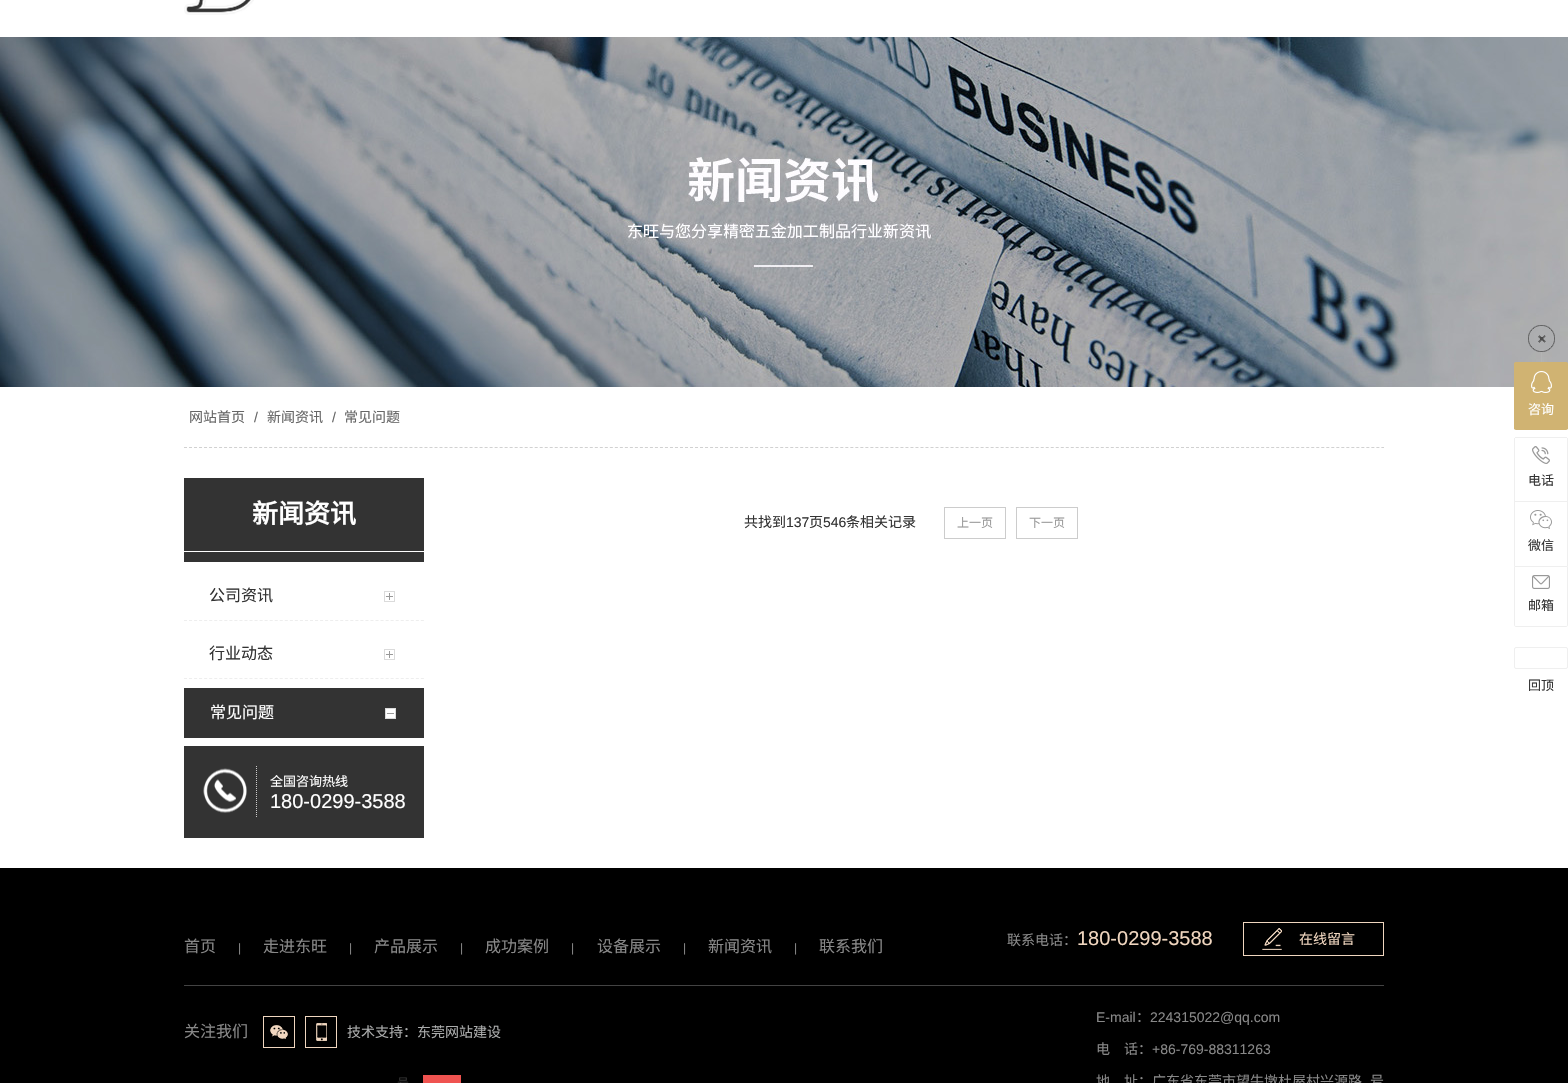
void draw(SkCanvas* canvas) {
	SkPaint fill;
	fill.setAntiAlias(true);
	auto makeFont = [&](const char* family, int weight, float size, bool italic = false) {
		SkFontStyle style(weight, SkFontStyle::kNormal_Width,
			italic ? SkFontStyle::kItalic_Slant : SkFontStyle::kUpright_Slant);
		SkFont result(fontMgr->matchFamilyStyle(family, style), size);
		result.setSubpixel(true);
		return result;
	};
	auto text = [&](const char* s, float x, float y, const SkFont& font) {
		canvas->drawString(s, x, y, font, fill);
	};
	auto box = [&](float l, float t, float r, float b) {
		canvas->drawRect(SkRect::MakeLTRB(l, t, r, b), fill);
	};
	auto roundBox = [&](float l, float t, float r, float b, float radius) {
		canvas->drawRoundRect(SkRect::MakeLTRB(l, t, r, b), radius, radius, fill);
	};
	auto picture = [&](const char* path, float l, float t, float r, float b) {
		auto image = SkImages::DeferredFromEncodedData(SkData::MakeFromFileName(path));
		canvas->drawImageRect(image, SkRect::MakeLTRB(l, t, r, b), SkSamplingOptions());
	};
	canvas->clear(0xFFFFFFFF);
	picture("image9.png", 0, 37, 1568, 387);
	picture("image0.png", 1528, 325, 1555, 352);
	fill.setColor(0xFFB4B4B4);
	box(1541, 352, 1542, 364);
	fill.setColor(0xFFD0B372);
	roundBox(1514, 362, 1568, 430, 2);
	box(1515, 362, 1567, 363);
	box(1567, 363, 1568, 429);
	box(1514, 363, 1515, 429);
	picture("image1.png", 1531, 371, 1552, 393);
	fill.setColor(0xFFEFEFEF);
	box(1515, 437, 1567, 438);
	box(1567, 438, 1568, 501);
	box(1514, 438, 1515, 501);
	picture("image2.png", 1532, 446, 1550, 464);
	box(1514, 501, 1568, 502);
	box(1567, 501, 1568, 566);
	box(1514, 501, 1515, 566);
	picture("image3.png", 1530, 510, 1552, 529);
	fill.setStyle(SkPaint::kStroke_Style);
	fill.setStrokeWidth(1);
	canvas->drawPath(SkPathBuilder().moveTo(1514.5f, 566.5f).lineTo(1567.5f, 566.5f).lineTo(1567.5f, 625).cubicTo(1567.5f, 626, 1567, 626.5f, 1566, 626.5f).lineTo(1516, 626.5f).cubicTo(1515, 626.5f, 1514.5f, 626, 1514.5f, 625).close().detach(), fill);
	picture("image4.png", 1532, 575, 1550, 589);
	canvas->drawRoundRect(SkRect::MakeLTRB(1514.5f, 647.5f, 1567.5f, 668.5f), 1.5f, 1.5f, fill);
	fill.setStyle(SkPaint::kFill_Style);
	fill.setColor(0xFF000000);
	box(0, 868, 1568, 1083);
	fill.setColor(0xFF434343);
	box(184, 985, 1384, 986);
	picture("image5.png", 1262, 928, 1282, 950);
	fill.setStyle(SkPaint::kStroke_Style);
	fill.setColor(0xFFF0D6BF);
	canvas->drawRect(SkRect::MakeLTRB(1243.5f, 922.5f, 1383.5f, 955.5f), fill);
	canvas->drawRect(SkRect::MakeLTRB(263.5f, 1016.5f, 294.5f, 1047.5f), fill);
	picture("image6.png", 270, 1025, 288, 1039);
	canvas->drawRect(SkRect::MakeLTRB(305.5f, 1016.5f, 336.5f, 1047.5f), fill);
	picture("image7.png", 316, 1023, 327, 1041);
	fill.setStyle(SkPaint::kFill_Style);
	fill.setColor(0xFFEF5350);
	box(423, 1075, 461, 1083);
	picture("image8.png", 184, 0, 254, 15);
	fill.setStyle(SkPaint::kStroke_Style);
	fill.setColor(0xFFD1D1D1);
	fill.setPathEffect(SkDashPathEffect::Make({{3, 2.01f}}, 0));
	canvas->drawPath(SkPathBuilder().moveTo(184, 447.5f).lineTo(1384, 447.5f).detach(), fill);
	fill.setPathEffect(nullptr);
	fill.setStyle(SkPaint::kFill_Style);
	fill.setColor(0xFF333333);
	box(184, 478, 424, 562);
	fill.setColor(0xFFFFFFFF);
	box(184, 551, 424, 552);
	picture("image10.png", 384, 591, 395, 602);
	fill.setStyle(SkPaint::kStroke_Style);
	fill.setColor(0xFFEEEEEE);
	fill.setPathEffect(SkDashPathEffect::Make({{3, 2.04f}}, 0));
	canvas->drawPath(SkPathBuilder().moveTo(184, 620.5f).lineTo(424, 620.5f).detach(), fill);
	fill.setPathEffect(nullptr);
	picture("image10.png", 384, 649, 395, 660);
	fill.setPathEffect(SkDashPathEffect::Make({{3, 2.04f}}, 0));
	canvas->drawPath(SkPathBuilder().moveTo(184, 678.5f).lineTo(424, 678.5f).detach(), fill);
	fill.setPathEffect(nullptr);
	fill.setStyle(SkPaint::kFill_Style);
	fill.setColor(0xFF333333);
	box(184, 688, 424, 738);
	picture("image11.png", 385, 708, 396, 719);
	box(184, 746, 424, 838);
	picture("image12.png", 203, 768, 247, 813);
	fill.setStyle(SkPaint::kStroke_Style);
	fill.setColor(0xFFCCCCCC);
	fill.setPathEffect(SkDashPathEffect::Make({{1, 1}}, 0));
	canvas->drawPath(SkPathBuilder().moveTo(256.5f, 766).lineTo(256.5f, 818).detach(), fill);
	fill.setPathEffect(nullptr);
	canvas->drawRect(SkRect::MakeLTRB(944.5f, 507.5f, 1005.5f, 538.5f), fill);
	canvas->drawRect(SkRect::MakeLTRB(1016.5f, 507.5f, 1077.5f, 538.5f), fill);
	auto font1 = makeFont("Noto Sans CJK SC", 400, 13);
	fill.setStyle(SkPaint::kFill_Style);
	fill.setColor(0xFFFFFFFF);
	text("咨询", 1528, 414, font1);
	fill.setColor(0xFF333333);
	text("电话", 1528, 485, font1);
	text("微信", 1528, 550, font1);
	text("邮箱", 1528, 610, font1);
	text("回顶", 1528, 690, font1);
	auto font2 = makeFont("Noto Sans CJK SC", 400, 16);
	fill.setColor(0xFF888888);
	text("首页", 184, 952, font2);
	auto font3 = makeFont("Liberation Sans", 400, 12);
	text("|", 238, 952, font3);
	text("走进东旺", 263, 952, font2);
	text("|", 349, 952, font3);
	text("产品展示", 374, 952, font2);
	text("|", 460, 952, font3);
	text("成功案例", 485, 952, font2);
	text("|", 571, 952, font3);
	text("设备展示", 597, 952, font2);
	text("|", 683, 952, font3);
	text("新闻资讯", 708, 952, font2);
	text("|", 794, 952, font3);
	text("联系我们", 819, 952, font2);
	auto font4 = makeFont("Noto Sans CJK SC", 400, 14);
	text("联系电话：", 1007, 945, font4);
	auto font5 = makeFont("Liberation Sans", 400, 20);
	fill.setColor(0xFFF0D6BF);
	text("180-0299-3588", 1077, 945, font5);
	text("在线留言", 1299, 944, font4);
	fill.setColor(0xFF888888);
	text("关注我们", 184, 1037, font2);
	fill.setColor(0xFFABACAC);
	text("技术支持：东莞网站建设", 347, 1037, font4);
	auto font6 = makeFont("Noto Sans CJK SC", 400, 12);
	fill.setColor(0xFF333333);
	text("号", 397, 1087, font6);
	auto font7 = makeFont("Liberation Sans", 400, 14);
	fill.setColor(0xFF888888);
	text("E-mail", 1096, 1022, font7);
	text("：", 1136, 1022, font4);
	text("224315022@qq.com", 1150, 1022, font7);
	text("电　话：", 1096, 1054, font4);
	text("+86-769-88311263", 1152, 1054, font7);
	text("地　址：广东省东莞市望牛墩杜屋村兴源路", 1096, 1086, font4);
	text("号", 1370, 1086, font4);
	fill.setColor(0xFF666666);
	text("网站首页", 189, 422, font4);
	text("/", 254, 422, font7);
	text("新闻资讯", 267, 422, font4);
	text("/", 332, 422, font7);
	text("常见问题", 344, 422, font4);
	auto font8 = makeFont("Noto Sans CJK SC", 700, 26);
	fill.setColor(0xFFFFFFFF);
	text("新闻资讯", 252, 523, font8);
	fill.setColor(0xFF333333);
	text("公司资讯", 209, 601, font2);
	text("行业动态", 209, 659, font2);
	fill.setColor(0xFFFFFFFF);
	text("常见问题", 210, 718, font2);
	text("全国咨询热线", 270, 786, font1);
	text("180-0299-3588", 270, 808, font5);
	fill.setColor(0xFF333333);
	text("共找到", 744, 527, font4);
	text("137", 786, 527, font7);
	text("页", 809, 527, font4);
	text("546", 823, 527, font7);
	text("条相关记录", 846, 527, font4);
	fill.setColor(0xFF999999);
	text("上一页", 957, 527, font6);
	text("下一页", 1029, 527, font6);
}
